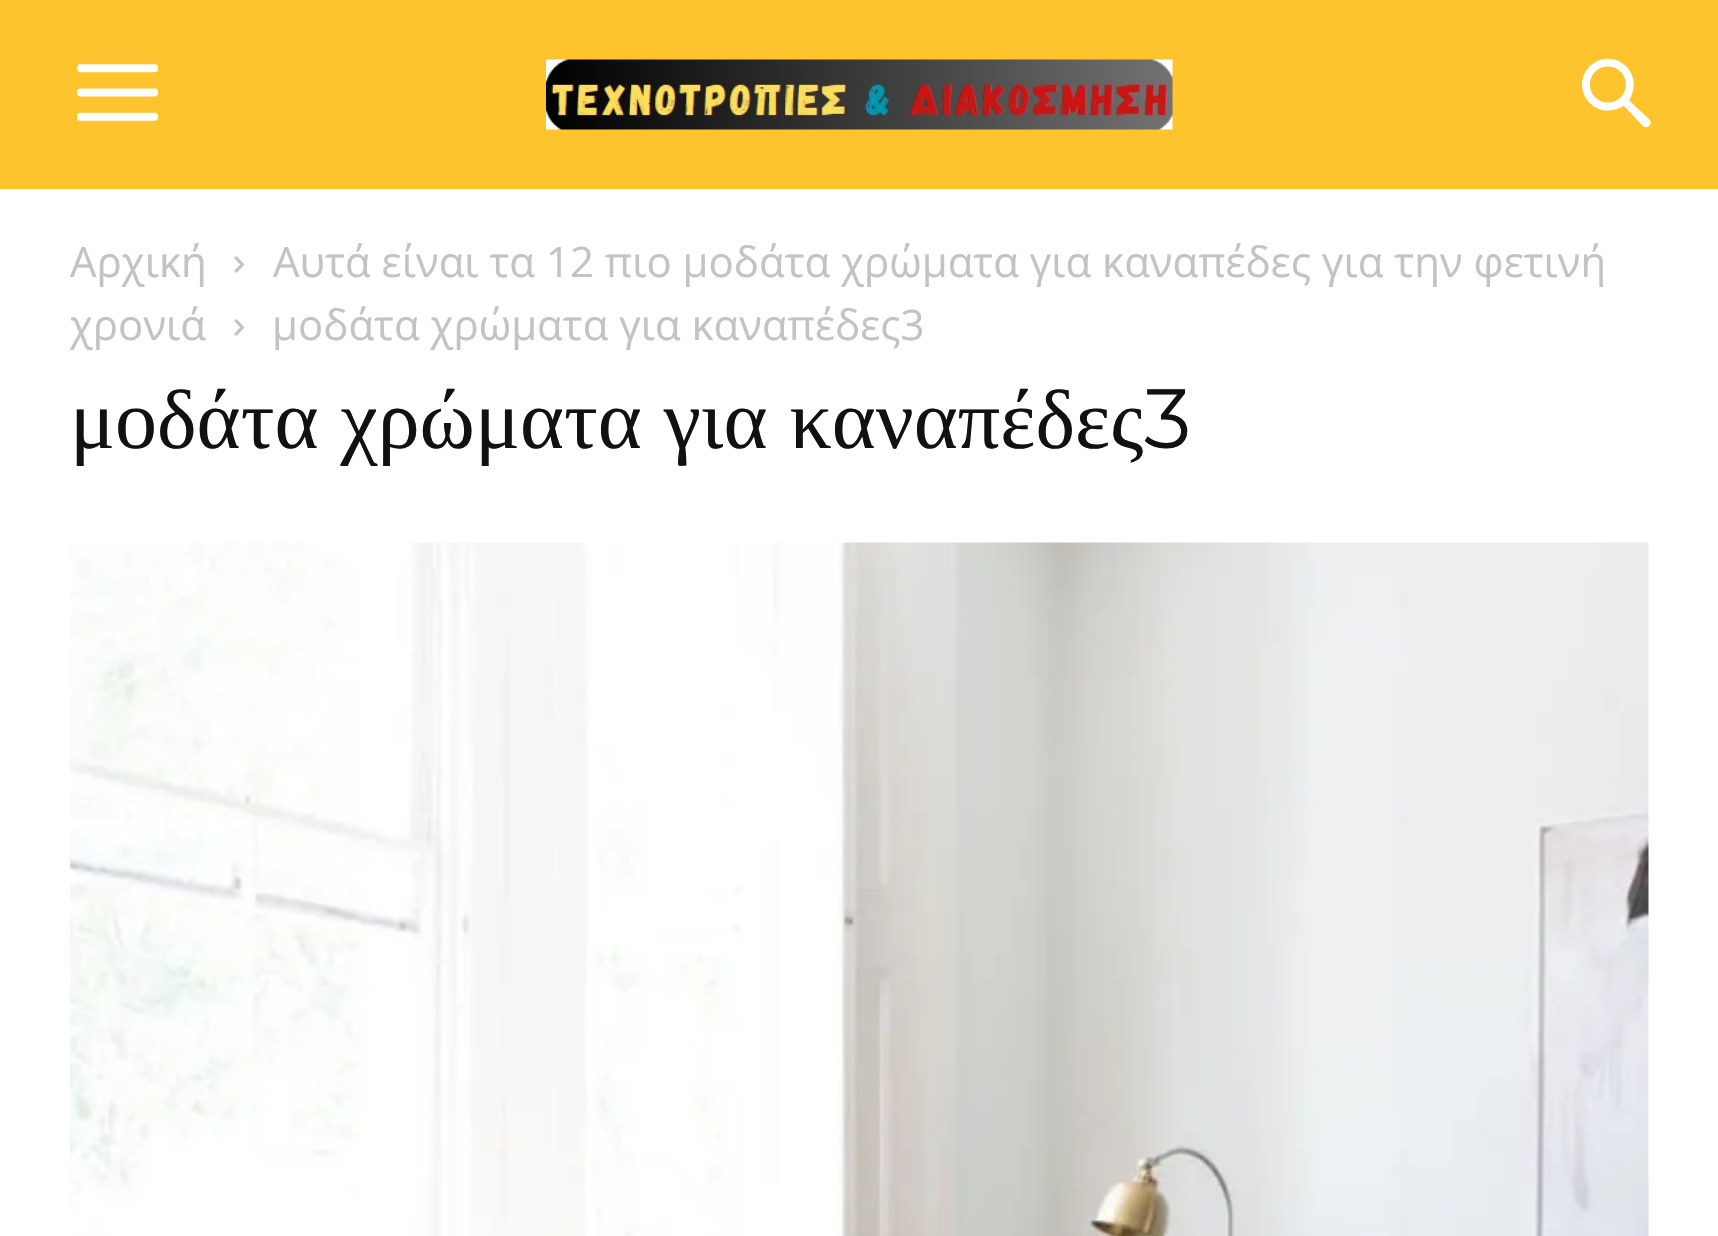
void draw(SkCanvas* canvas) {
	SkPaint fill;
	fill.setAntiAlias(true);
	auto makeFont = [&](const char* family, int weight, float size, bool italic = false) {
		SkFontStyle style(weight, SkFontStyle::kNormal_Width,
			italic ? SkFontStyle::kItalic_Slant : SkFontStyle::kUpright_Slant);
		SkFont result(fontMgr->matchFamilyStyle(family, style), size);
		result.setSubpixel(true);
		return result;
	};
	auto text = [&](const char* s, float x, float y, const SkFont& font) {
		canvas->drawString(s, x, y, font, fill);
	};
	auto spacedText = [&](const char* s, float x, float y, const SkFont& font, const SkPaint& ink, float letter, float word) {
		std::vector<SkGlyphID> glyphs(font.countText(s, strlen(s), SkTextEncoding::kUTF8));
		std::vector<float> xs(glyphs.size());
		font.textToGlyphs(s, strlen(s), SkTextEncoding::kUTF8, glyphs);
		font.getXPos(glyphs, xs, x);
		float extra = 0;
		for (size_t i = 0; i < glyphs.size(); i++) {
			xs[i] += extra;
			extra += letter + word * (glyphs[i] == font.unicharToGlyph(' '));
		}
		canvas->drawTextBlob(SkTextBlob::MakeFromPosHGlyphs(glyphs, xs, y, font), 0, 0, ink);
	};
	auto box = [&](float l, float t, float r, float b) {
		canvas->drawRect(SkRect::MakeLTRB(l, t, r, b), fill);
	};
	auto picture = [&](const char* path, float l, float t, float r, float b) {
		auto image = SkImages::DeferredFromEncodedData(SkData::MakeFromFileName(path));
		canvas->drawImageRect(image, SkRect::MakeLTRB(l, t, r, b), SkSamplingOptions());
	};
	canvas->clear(0xFFFFFFFF);
	fill.setColor(0xFFFDC42D);
	box(0, 0, 1718, 189);
	picture("image0.png", 77, 64, 159, 121);
	picture("image1.png", 546, 59, 1173, 130);
	picture("image2.png", 1582, 58, 1651, 128);
	picture("image3.png", 234, 256, 244, 273);
	picture("image3.png", 234, 319, 244, 336);
	picture("image4.png", 70, 542, 1649, 1236);
	auto font1 = makeFont("Open Sans", 400, 42);
	fill.setColor(0xFFC3C3C3);
	text("Αρχική", 70, 277, font1);
	text("Αυτά είναι τα 12 πιο μοδάτα χρώματα για καναπέδες για την φετινή", 273, 277, font1);
	text("χρονιά", 70, 340, font1);
	text("μοδάτα χρώματα για καναπέδες3", 272, 340, font1);
	auto font2 = makeFont("Liberation Serif", 400, 84);
	fill.setColor(0xFF111111);
	spacedText("μοδάτα χρώματα για καναπέδες", 70, 448, font2, fill, 0, 1);
	auto font3 = makeFont("Montserrat", 400, 84);
	text("3", 1144, 448, font3);
}
